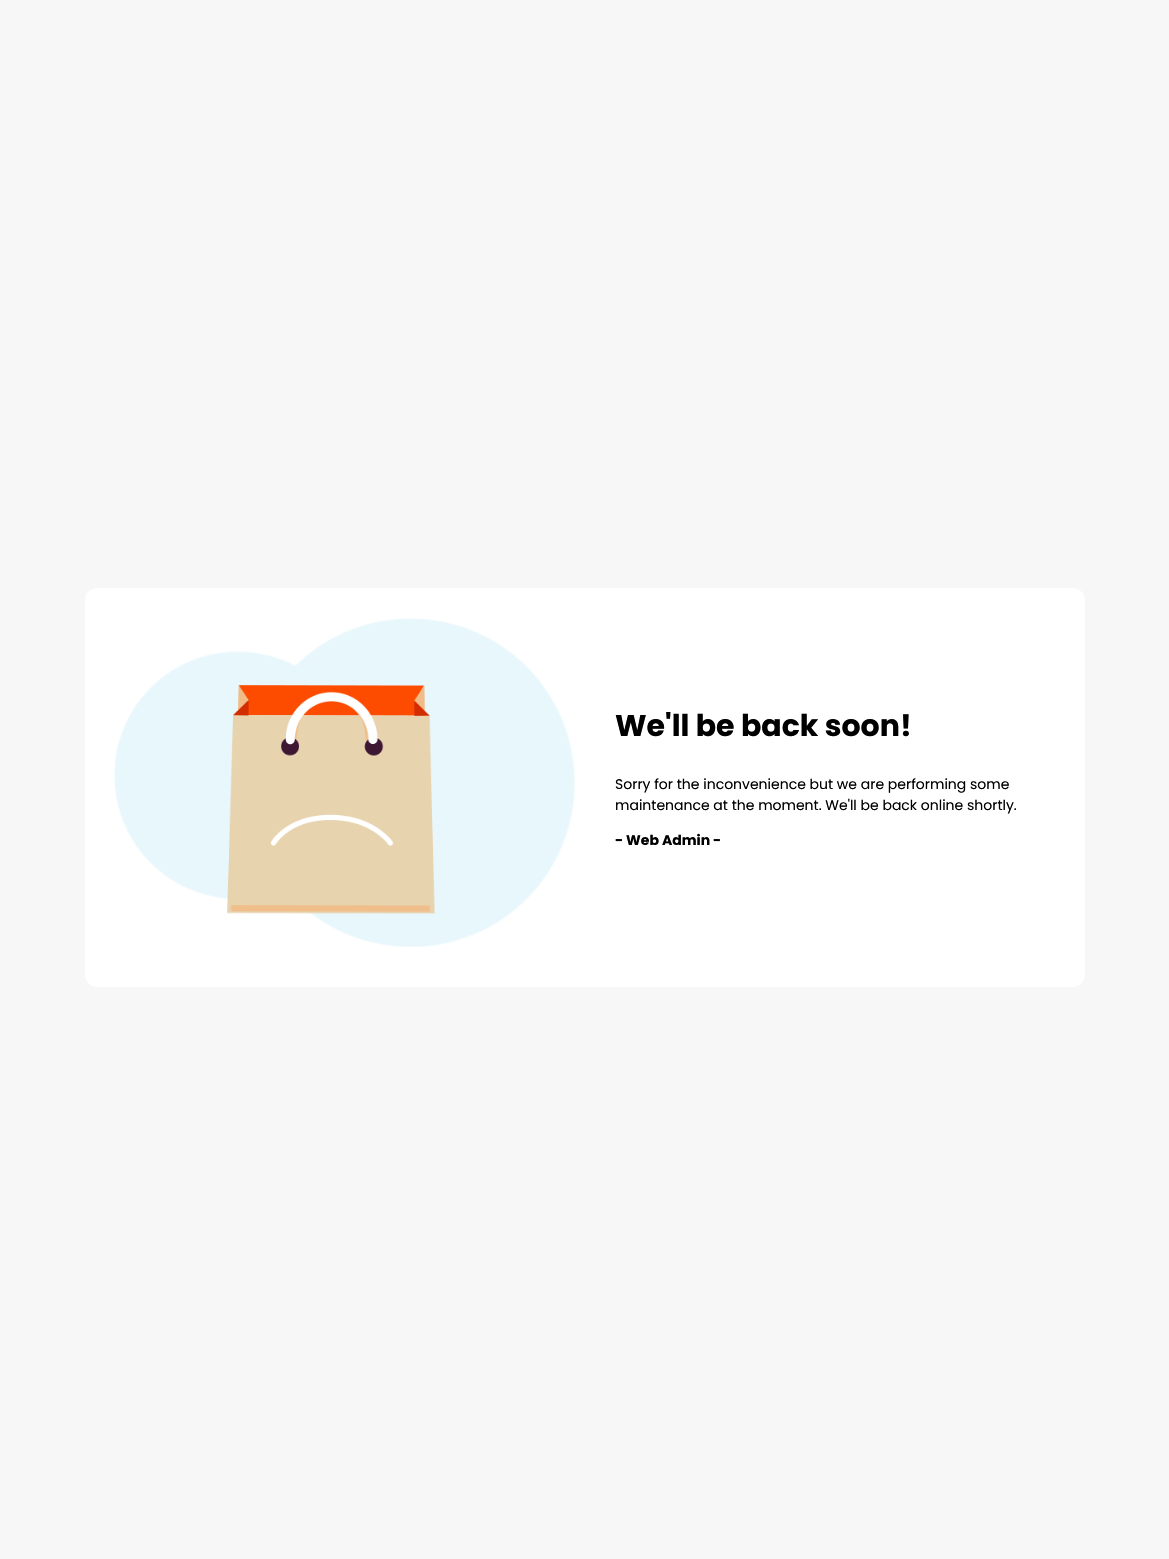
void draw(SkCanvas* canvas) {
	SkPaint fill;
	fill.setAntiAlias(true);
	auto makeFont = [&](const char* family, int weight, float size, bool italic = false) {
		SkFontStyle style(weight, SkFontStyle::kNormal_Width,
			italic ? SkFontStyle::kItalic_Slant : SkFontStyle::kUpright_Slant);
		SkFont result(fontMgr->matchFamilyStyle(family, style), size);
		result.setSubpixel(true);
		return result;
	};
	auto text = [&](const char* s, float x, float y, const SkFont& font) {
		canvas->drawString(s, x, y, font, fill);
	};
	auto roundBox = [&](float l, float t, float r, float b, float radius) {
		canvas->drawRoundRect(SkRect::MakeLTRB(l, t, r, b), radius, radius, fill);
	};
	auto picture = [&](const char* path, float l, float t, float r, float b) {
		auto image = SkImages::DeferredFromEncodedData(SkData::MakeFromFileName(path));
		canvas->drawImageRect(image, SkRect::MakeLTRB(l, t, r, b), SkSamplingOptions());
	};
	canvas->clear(0xFFF7F7F7);
	fill.setColor(0xFFFFFFFF);
	roundBox(85, 588, 1085, 987, 12);
	picture("image0.png", 114, 618, 575, 947);
	auto font1 = makeFont("Poppins", 700, 30);
	fill.setColor(0xFF000000);
	text("We'll be back soon!", 615, 736, font1);
	auto font2 = makeFont("Poppins", 400, 14);
	text("Sorry for the inconvenience but we are performing some", 615, 789, font2);
	text("maintenance at the moment. We'll be back online shortly.", 615, 810, font2);
	auto font3 = makeFont("Poppins", 700, 14);
	text("- Web Admin -", 615, 845, font3);
}
